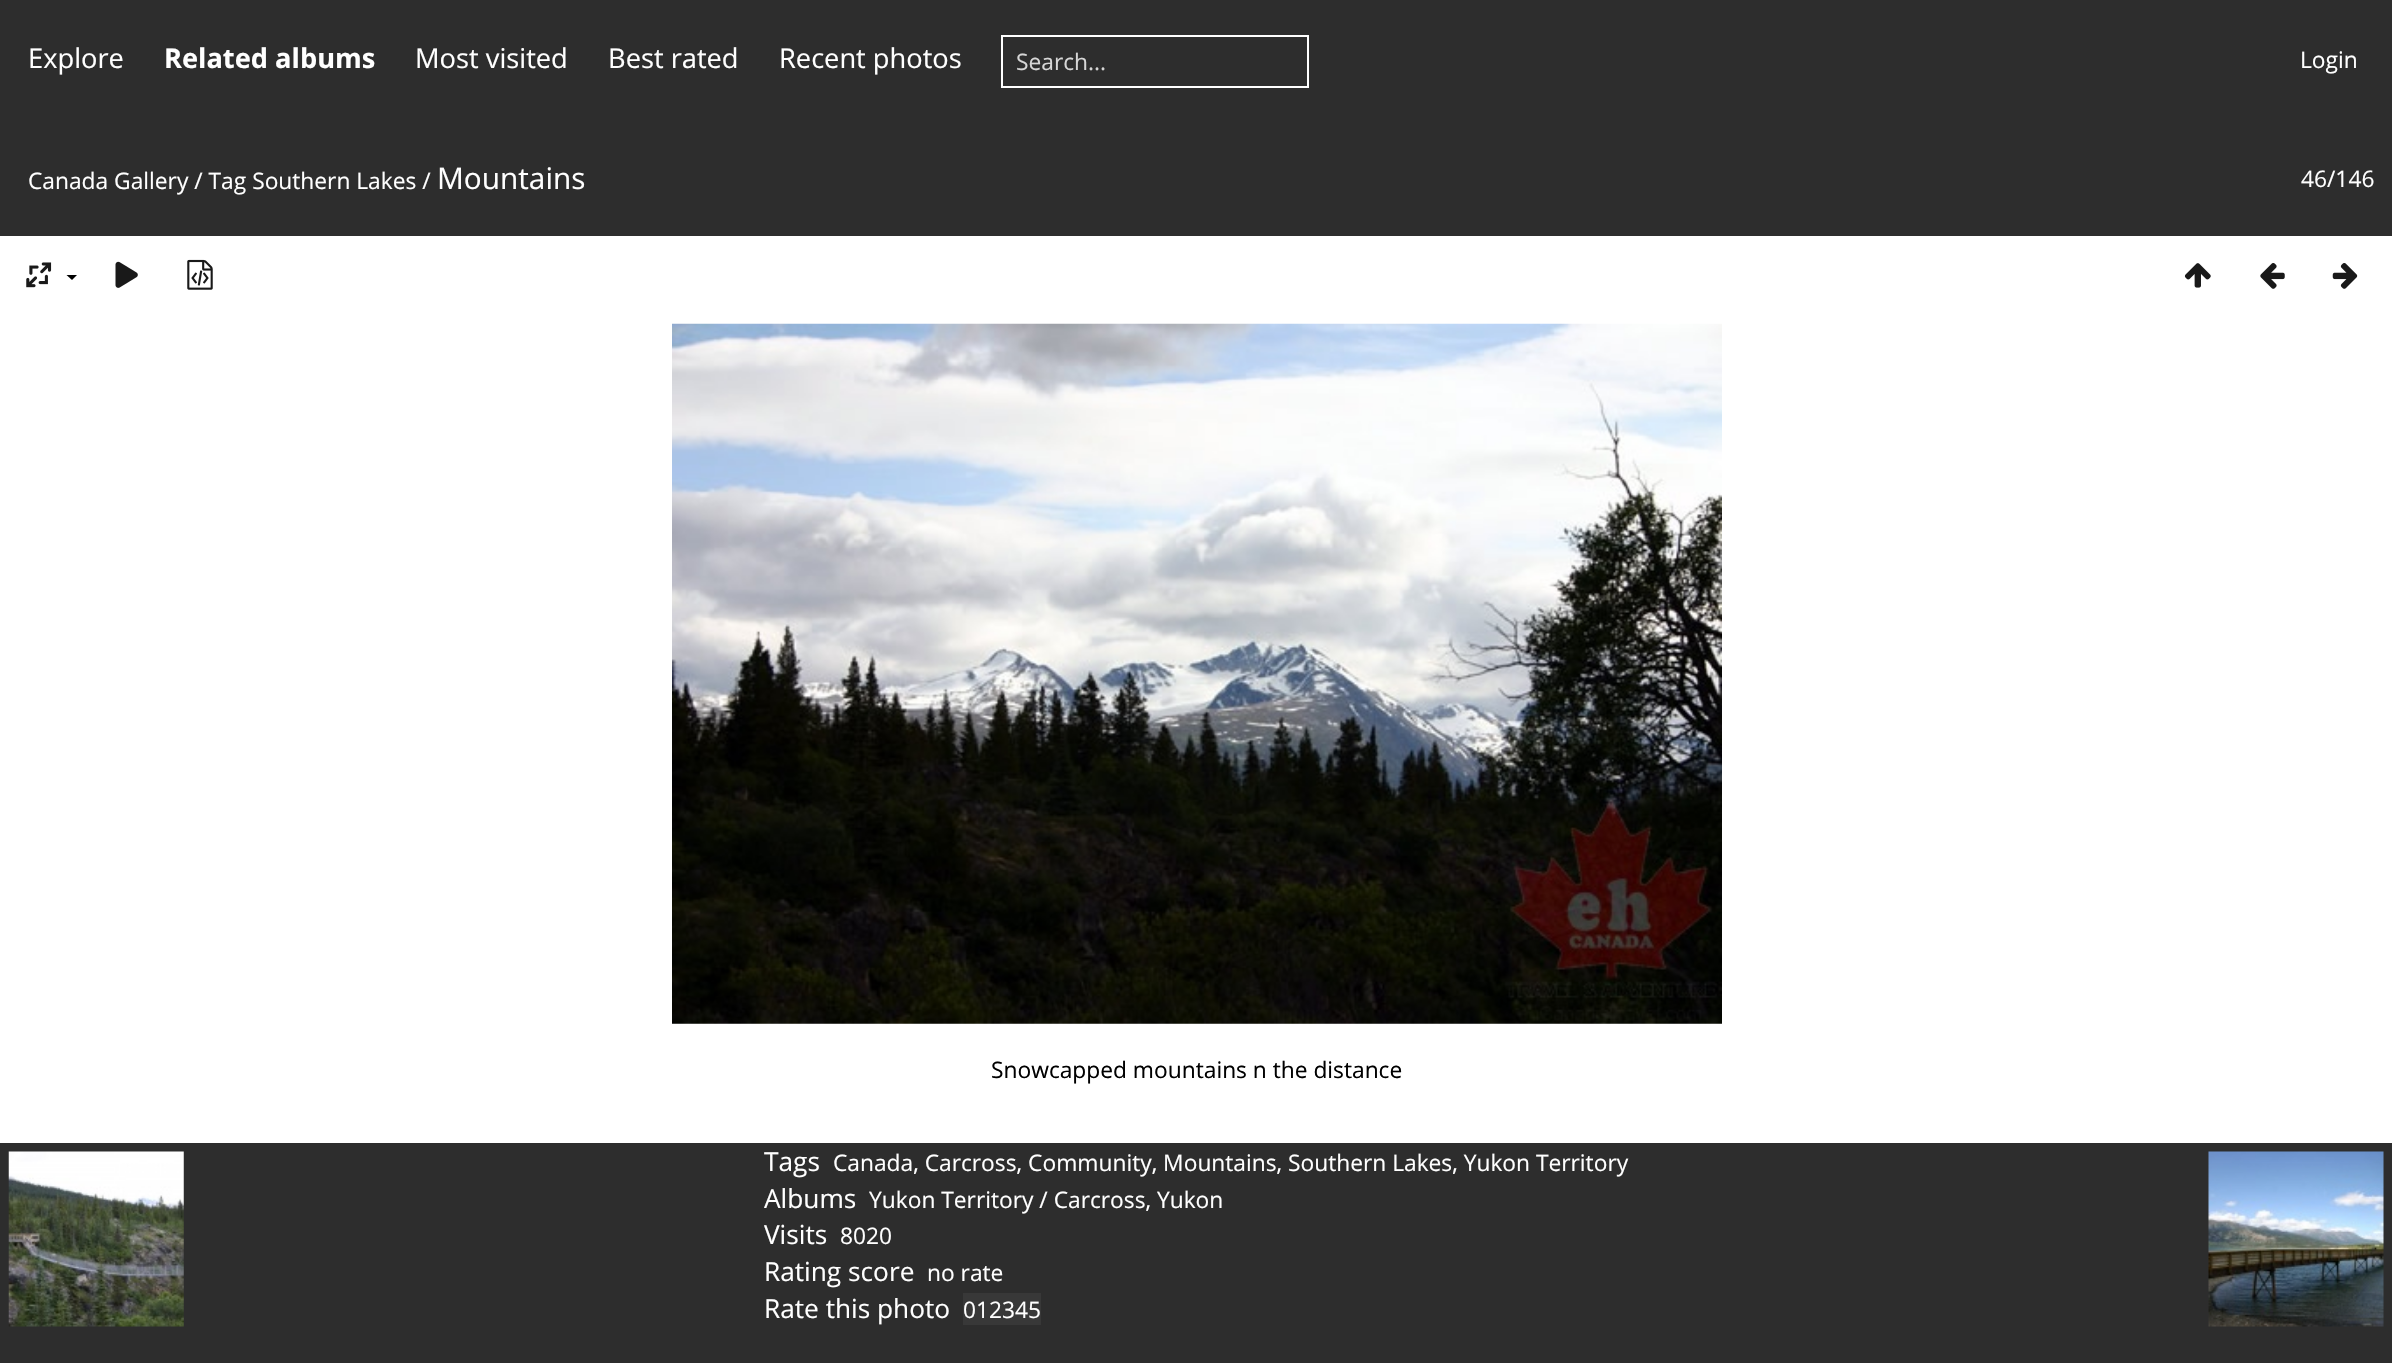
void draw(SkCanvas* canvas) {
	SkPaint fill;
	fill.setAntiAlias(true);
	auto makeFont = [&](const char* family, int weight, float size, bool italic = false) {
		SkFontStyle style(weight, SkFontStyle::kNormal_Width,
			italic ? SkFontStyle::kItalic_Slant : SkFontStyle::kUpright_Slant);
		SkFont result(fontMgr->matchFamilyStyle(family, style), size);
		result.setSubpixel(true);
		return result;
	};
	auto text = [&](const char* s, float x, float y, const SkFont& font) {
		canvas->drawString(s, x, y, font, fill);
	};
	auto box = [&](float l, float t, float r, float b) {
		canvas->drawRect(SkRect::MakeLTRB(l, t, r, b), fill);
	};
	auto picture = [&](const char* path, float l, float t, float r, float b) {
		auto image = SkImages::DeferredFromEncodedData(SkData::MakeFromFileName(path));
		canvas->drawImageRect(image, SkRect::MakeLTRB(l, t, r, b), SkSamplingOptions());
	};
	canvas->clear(0xFFFFFFFF);
	fill.setColor(0xFF2D2D2D);
	box(0, 0, 2392, 236);
	fill.setStyle(SkPaint::kStroke_Style);
	fill.setStrokeWidth(2);
	fill.setColor(0xFFFFFFFF);
	canvas->drawRect(SkRect::MakeLTRB(1002, 36, 1308, 87), fill);
	picture("image0.png", 26, 262, 52, 288);
	fill.setStyle(SkPaint::kFill_Style);
	fill.setColor(0xFF000000);
	canvas->drawPath(SkPathBuilder().moveTo(66.5f, 275).lineTo(77, 275).lineTo(72, 280).close().detach(), fill);
	picture("image1.png", 115, 261, 138, 288);
	picture("image2.png", 187, 259, 213, 290);
	picture("image3.png", 2184, 263, 2211, 288);
	picture("image4.png", 2260, 263, 2285, 289);
	picture("image5.png", 2332, 263, 2358, 289);
	picture("image6.png", 672, 323, 1722, 1024);
	fill.setColor(0xFF2D2D2D);
	box(0, 1143, 2392, 1363);
	picture("image7.png", 8, 1151, 184, 1327);
	picture("image8.png", 2208, 1151, 2384, 1327);
	fill.setColor(0xFF383838);
	box(963, 1293, 1041, 1325);
	auto font1 = makeFont("Open Sans", 400, 27.25f);
	fill.setColor(0xFFFFFFFF);
	text("Explore", 28, 68, font1);
	auto font2 = makeFont("Open Sans", 700, 27.25f);
	text("Related albums", 164, 68, font2);
	text("Most visited", 415, 68, font1);
	text("Best rated", 608, 68, font1);
	text("Recent photos", 779, 68, font1);
	auto font3 = makeFont("Open Sans", 400, 22.75f);
	fill.setColor(0xFFD6D6D6);
	text("Search...", 1016, 70, font3);
	fill.setColor(0xFFFFFFFF);
	text("Login", 2300, 68, font3);
	text("Canada Gallery / Tag Southern Lakes /", 28, 189, font3);
	auto font4 = makeFont("Open Sans", 400, 29.75f);
	text("Mountains", 437, 189, font4);
	text("46/146", 2301, 187, font3);
	fill.setColor(0xFF000000);
	text("Snowcapped mountains n the distance", 991, 1078, font3);
	auto font5 = makeFont("Open Sans", 400, 26.25f);
	fill.setColor(0xFFFFFFFF);
	text("Tags", 764, 1171, font5);
	text("Canada, Carcross, Community, Mountains, Southern Lakes, Yukon Territory", 833, 1171, font3);
	text("Albums", 764, 1208, font5);
	text("Yukon Territory / Carcross, Yukon", 869, 1208, font3);
	text("Visits", 764, 1244, font5);
	text("8020", 840, 1244, font3);
	text("Rating score", 764, 1281, font5);
	text("no rate", 927, 1281, font3);
	text("Rate this photo", 764, 1318, font5);
	text("012345", 963, 1318, font3);
}
